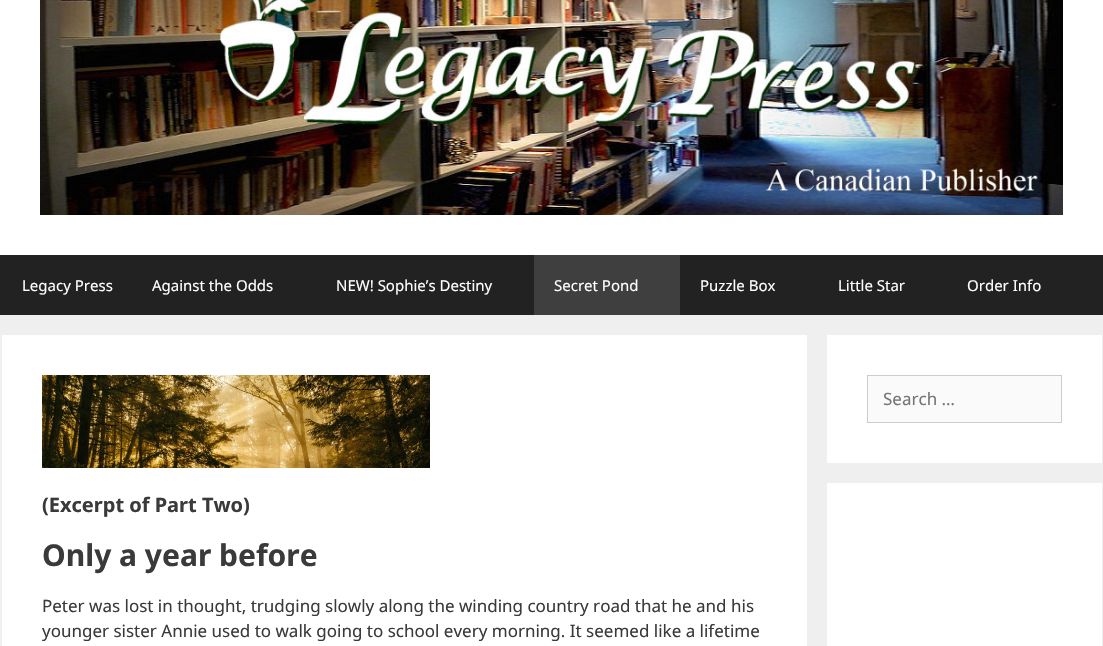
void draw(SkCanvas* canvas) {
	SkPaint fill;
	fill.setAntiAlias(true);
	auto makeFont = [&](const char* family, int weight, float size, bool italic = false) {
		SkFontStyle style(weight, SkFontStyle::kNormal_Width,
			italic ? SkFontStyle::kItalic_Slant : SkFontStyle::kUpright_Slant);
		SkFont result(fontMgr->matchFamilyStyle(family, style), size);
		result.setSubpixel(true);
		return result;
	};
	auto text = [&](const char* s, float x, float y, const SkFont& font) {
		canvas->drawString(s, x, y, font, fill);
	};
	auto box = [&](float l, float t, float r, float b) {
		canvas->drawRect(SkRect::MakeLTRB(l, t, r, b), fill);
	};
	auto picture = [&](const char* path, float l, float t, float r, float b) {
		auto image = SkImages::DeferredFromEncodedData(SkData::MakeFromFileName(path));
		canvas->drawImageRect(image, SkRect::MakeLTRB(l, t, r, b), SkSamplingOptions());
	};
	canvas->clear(0xFFEFEFEF);
	fill.setColor(0xFFFFFFFF);
	box(0, 0, 1103, 255);
	picture("image0.png", 40, 0, 1063, 215);
	fill.setColor(0xFF222222);
	box(0, 255, 1103, 315);
	fill.setColor(0xFF3F3F3F);
	box(534, 255, 680, 315);
	fill.setColor(0xFFFFFFFF);
	box(827, 335, 1102, 463);
	fill.setColor(0xFFFAFAFA);
	canvas->drawRect(SkRect::MakeLTRB(867.5f, 375.5f, 1061.5f, 422.5f), fill);
	fill.setStyle(SkPaint::kStroke_Style);
	fill.setStrokeWidth(1);
	fill.setColor(0xFFCCCCCC);
	canvas->drawRect(SkRect::MakeLTRB(867.5f, 375.5f, 1061.5f, 422.5f), fill);
	fill.setStyle(SkPaint::kFill_Style);
	fill.setColor(0xFFFFFFFF);
	box(827, 483, 1102, 646);
	box(2, 335, 807, 646);
	picture("image1.png", 42, 375, 430, 468);
	auto font1 = makeFont("Noto Sans", 400, 15);
	text("Legacy Press", 22, 291, font1);
	text("Against the Odds", 152, 291, font1);
	text("NEW! Sophie’s Destiny", 336, 291, font1);
	text("Secret Pond", 554, 291, font1);
	text("Puzzle Box", 700, 291, font1);
	text("Little Star", 838, 291, font1);
	text("Order Info", 967, 291, font1);
	auto font2 = makeFont("Noto Sans", 400, 17);
	fill.setColor(0xFF757575);
	text("Search …", 883, 405, font2);
	auto font3 = makeFont("Noto Sans", 700, 20);
	fill.setColor(0xFF3A3A3A);
	text("(Excerpt of Part Two)", 42, 512, font3);
	auto font4 = makeFont("Noto Sans", 700, 30);
	text("Only a year before", 42, 566, font4);
	text("Peter was lost in thought, trudging slowly along the winding country road that he and his", 42, 612, font2);
	text("younger sister Annie used to walk going to school every morning. It seemed like a lifetime", 42, 637, font2);
}
